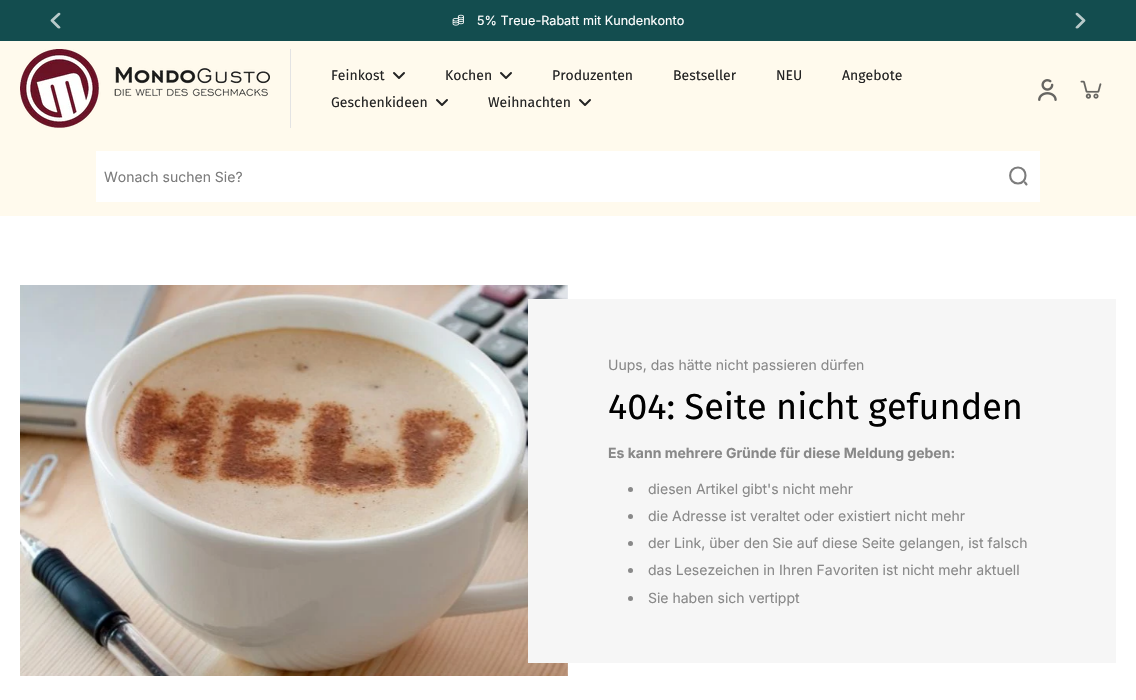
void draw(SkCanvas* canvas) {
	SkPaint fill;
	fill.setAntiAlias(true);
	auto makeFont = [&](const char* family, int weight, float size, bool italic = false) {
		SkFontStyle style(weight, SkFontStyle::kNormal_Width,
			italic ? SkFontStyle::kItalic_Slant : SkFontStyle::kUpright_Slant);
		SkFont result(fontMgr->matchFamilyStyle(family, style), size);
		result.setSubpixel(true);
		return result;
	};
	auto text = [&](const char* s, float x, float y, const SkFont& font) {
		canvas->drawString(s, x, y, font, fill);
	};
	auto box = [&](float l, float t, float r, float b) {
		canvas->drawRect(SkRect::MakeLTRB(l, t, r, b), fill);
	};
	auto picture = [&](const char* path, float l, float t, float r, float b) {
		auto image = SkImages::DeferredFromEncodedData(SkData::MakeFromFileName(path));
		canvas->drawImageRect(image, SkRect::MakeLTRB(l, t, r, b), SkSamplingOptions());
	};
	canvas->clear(0xFFFFFFFF);
	fill.setColor(0xFF134D4F);
	box(0, 0, 1136, 41);
	canvas->save();
	canvas->clipPath(SkPathBuilder().moveTo(62, 12.5f).lineTo(62, 28.5f).lineTo(49.5f, 28.5f).lineTo(49.5f, 12.5f).close().detach(), true);
	fill.setStyle(SkPaint::kStroke_Style);
	fill.setStrokeWidth(2.7f);
	fill.setStrokeCap(SkPaint::kRound_Cap);
	fill.setStrokeJoin(SkPaint::kRound_Join);
	fill.setColor(0xFFB8CACA);
	canvas->drawPath(SkPathBuilder().moveTo(59, 14).lineTo(52, 20.5f).lineTo(59, 27.5f).detach(), fill);
	canvas->restore();
	canvas->save();
	canvas->clipPath(SkPathBuilder().moveTo(1074, 28.5f).lineTo(1074, 12.5f).lineTo(1086.5f, 12.5f).lineTo(1086.5f, 28.5f).close().detach(), true);
	canvas->drawPath(SkPathBuilder().moveTo(1077, 27.5f).lineTo(1084, 20.5f).lineTo(1077, 14).detach(), fill);
	canvas->restore();
	picture("image0.png", 452, 14, 464, 26);
	fill.setStyle(SkPaint::kFill_Style);
	fill.setColor(0xFFFFFAED);
	box(0, 41, 1136, 216);
	fill.setColor(0xFFE3E3E3);
	box(290, 49, 291, 128);
	picture("image1.png", 20, 49, 270, 128);
	fill.setStyle(SkPaint::kStroke_Style);
	fill.setStrokeWidth(2);
	fill.setColor(0xFF242424);
	canvas->drawPath(SkPathBuilder().moveTo(394, 73).lineTo(399, 78).lineTo(404, 73).detach(), fill);
	canvas->drawPath(SkPathBuilder().moveTo(501, 73).lineTo(506, 78).lineTo(511, 73).detach(), fill);
	canvas->drawPath(SkPathBuilder().moveTo(437, 100).lineTo(442, 105).lineTo(447, 100).detach(), fill);
	canvas->drawPath(SkPathBuilder().moveTo(580, 100).lineTo(585, 105).lineTo(590, 100).detach(), fill);
	picture("image2.png", 1038, 79, 1057, 101);
	picture("image3.png", 1080, 80, 1102, 99);
	fill.setStyle(SkPaint::kFill_Style);
	fill.setColor(0xFFFFFFFF);
	box(96, 151, 1040, 202);
	fill.setStyle(SkPaint::kStroke_Style);
	fill.setStrokeWidth(2.1f);
	fill.setColor(0xFF7C7C7C);
	canvas->drawPath(SkPathBuilder().moveTo(1018, 183.5f).cubicTo(1028, 183.5f, 1028, 167.5f, 1018, 167.5f).cubicTo(1007.5f, 167.5f, 1007.5f, 183.5f, 1018, 183.5f).close().moveTo(1026.5f, 184.5f).lineTo(1025, 182.5f).detach(), fill);
	picture("image4.png", 20, 285, 568, 676);
	fill.setStyle(SkPaint::kFill_Style);
	fill.setColor(0xFFF6F6F6);
	box(528, 299, 1116, 663);
	fill.setColor(0xFF898989);
	canvas->drawCircle(630.5f, 489.5f, 2.5f, fill);
	canvas->drawCircle(630.5f, 516.5f, 2.5f, fill);
	canvas->drawCircle(630.5f, 543.5f, 2.5f, fill);
	canvas->drawCircle(630.5f, 570.5f, 2.5f, fill);
	canvas->drawCircle(630.5f, 598.5f, 2.5f, fill);
	auto font1 = makeFont("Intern", 400, 12.6f);
	fill.setColor(0xFFFFFFFF);
	text("5% Treue-Rabatt mit Kundenkonto", 477, 25, font1);
	auto font2 = makeFont("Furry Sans", 400, 14);
	fill.setColor(0xFF242424);
	text("Feinkost", 331, 80, font2);
	text("Kochen", 445, 80, font2);
	text("Produzenten", 552, 80, font2);
	text("Bestseller", 673, 80, font2);
	text("NEU", 776, 80, font2);
	text("Angebote", 842, 80, font2);
	text("Geschenkideen", 331, 107, font2);
	text("Weihnachten", 488, 107, font2);
	auto font3 = makeFont("Intern", 400, 14);
	fill.setColor(0xFF7C7C7C);
	text("Wonach suchen Sie?", 104, 182, font3);
	fill.setColor(0xFF898989);
	text("Uups, das hätte nicht passieren dürfen", 608, 370, font3);
	auto font4 = makeFont("Furry Sans", 400, 36);
	fill.setColor(0xFF000000);
	text("404: Seite nicht gefunden", 608, 419, font4);
	auto font5 = makeFont("Intern", 700, 14);
	fill.setColor(0xFF898989);
	text("Es kann mehrere Gründe für diese Meldung geben:", 608, 458, font5);
	text("diesen Artikel gibt's nicht mehr", 648, 494, font3);
	text("die Adresse ist veraltet oder existiert nicht mehr", 648, 521, font3);
	text("der Link, über den Sie auf diese Seite gelangen, ist falsch", 648, 548, font3);
	text("das Lesezeichen in Ihren Favoriten ist nicht mehr aktuell", 648, 575, font3);
	text("Sie haben sich vertippt", 648, 603, font3);
}
